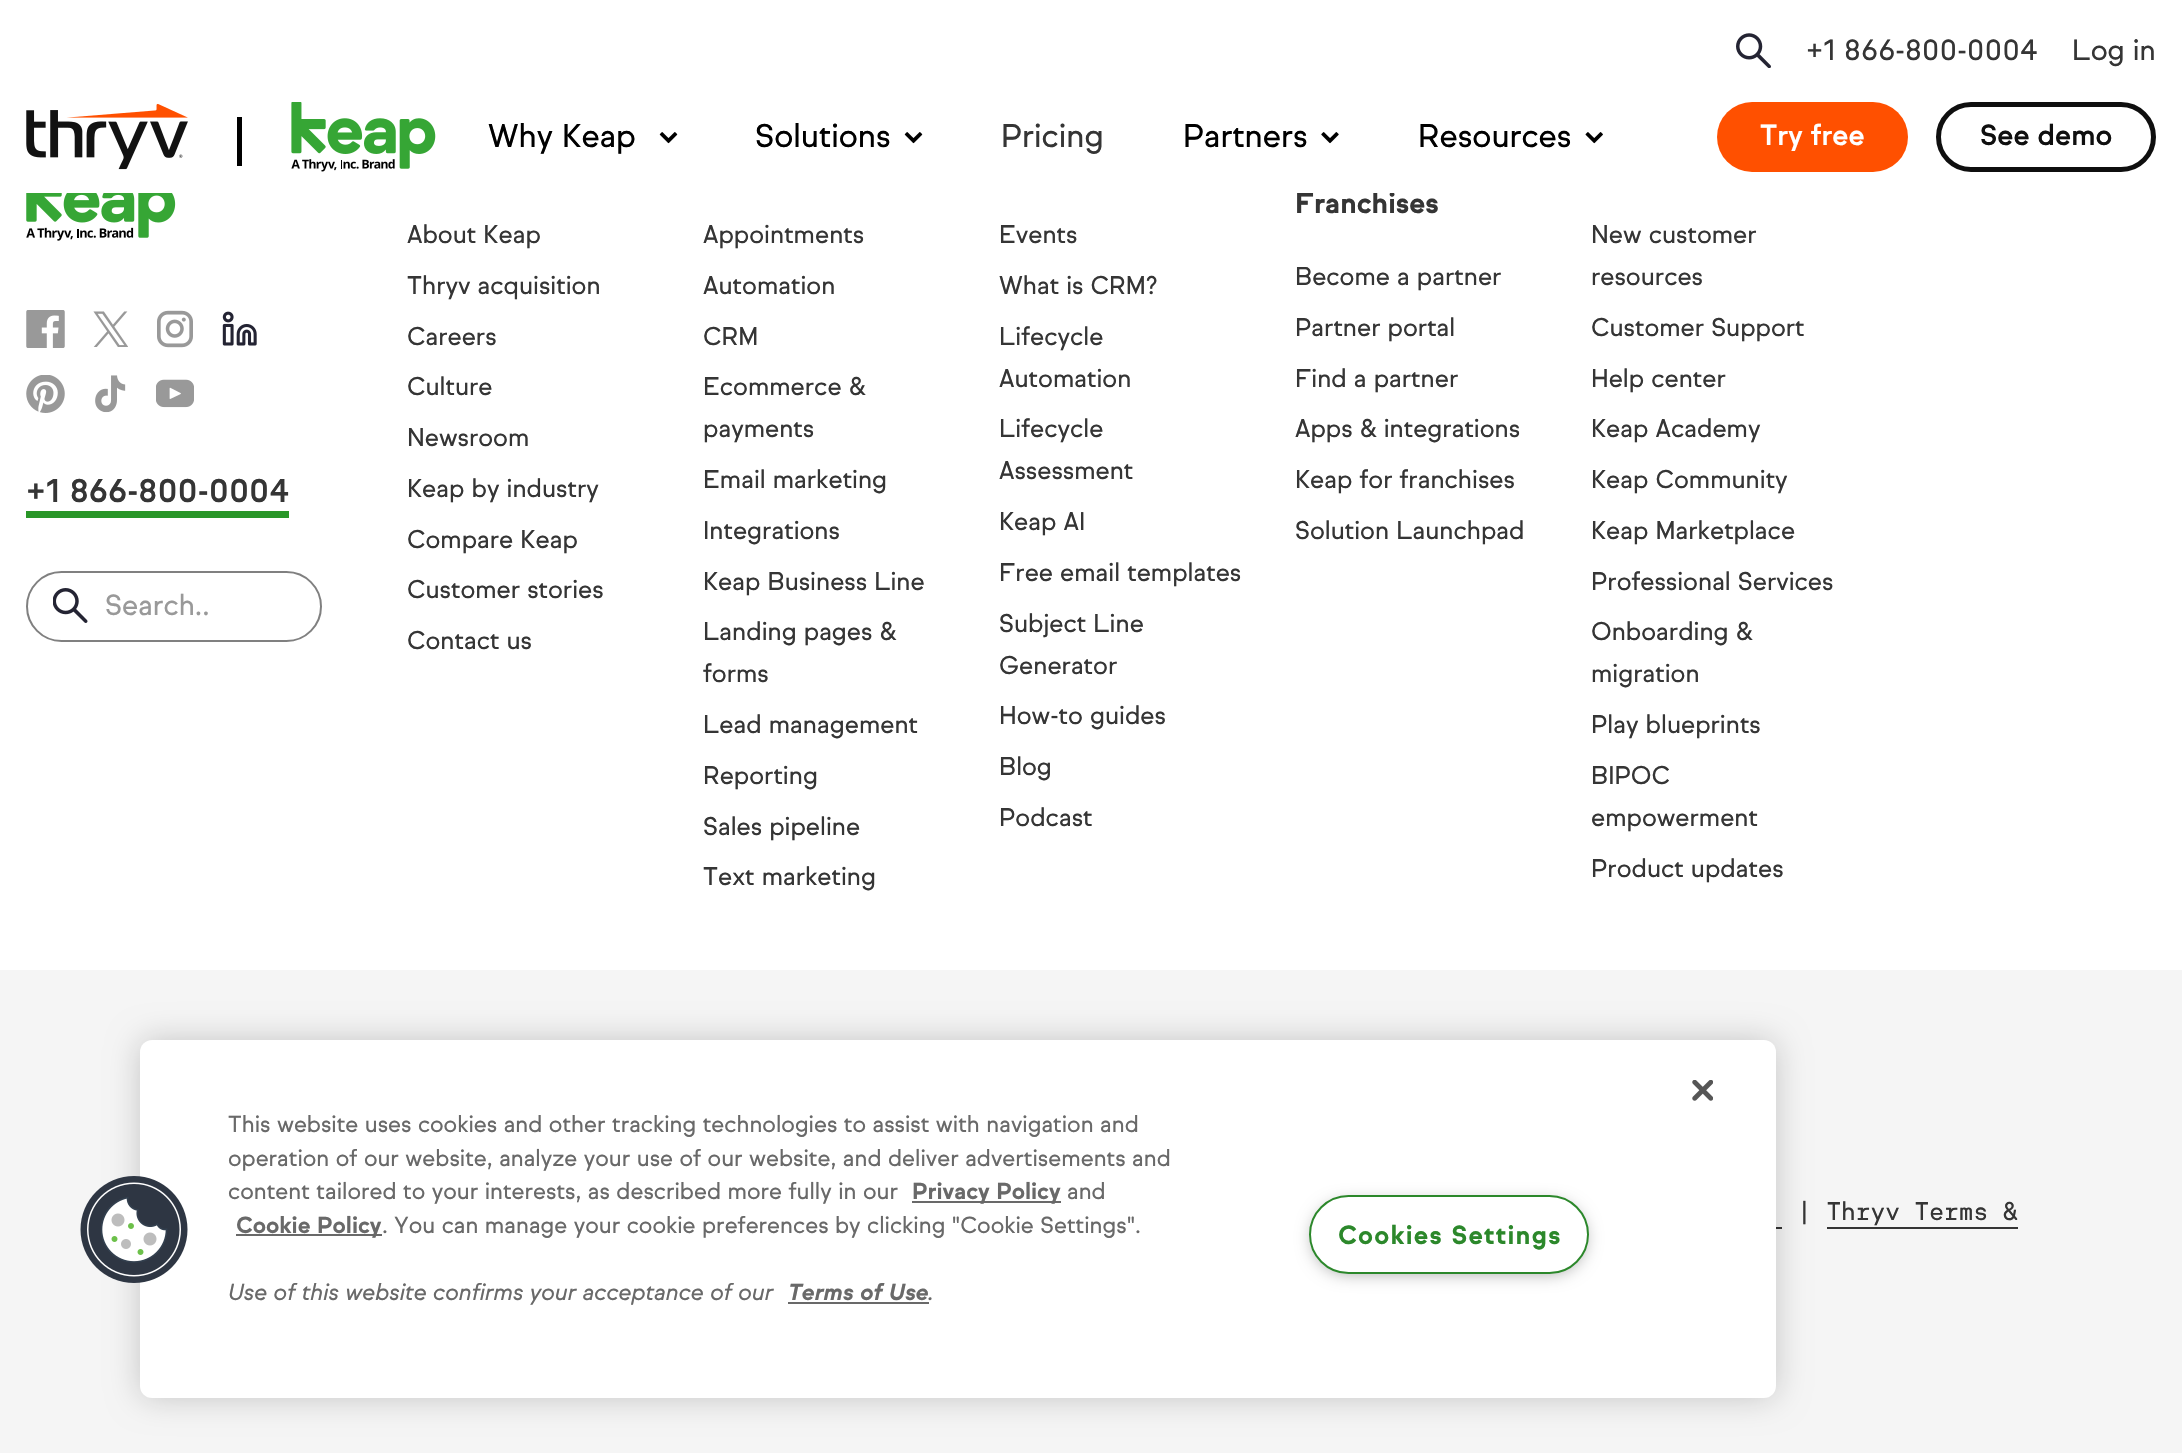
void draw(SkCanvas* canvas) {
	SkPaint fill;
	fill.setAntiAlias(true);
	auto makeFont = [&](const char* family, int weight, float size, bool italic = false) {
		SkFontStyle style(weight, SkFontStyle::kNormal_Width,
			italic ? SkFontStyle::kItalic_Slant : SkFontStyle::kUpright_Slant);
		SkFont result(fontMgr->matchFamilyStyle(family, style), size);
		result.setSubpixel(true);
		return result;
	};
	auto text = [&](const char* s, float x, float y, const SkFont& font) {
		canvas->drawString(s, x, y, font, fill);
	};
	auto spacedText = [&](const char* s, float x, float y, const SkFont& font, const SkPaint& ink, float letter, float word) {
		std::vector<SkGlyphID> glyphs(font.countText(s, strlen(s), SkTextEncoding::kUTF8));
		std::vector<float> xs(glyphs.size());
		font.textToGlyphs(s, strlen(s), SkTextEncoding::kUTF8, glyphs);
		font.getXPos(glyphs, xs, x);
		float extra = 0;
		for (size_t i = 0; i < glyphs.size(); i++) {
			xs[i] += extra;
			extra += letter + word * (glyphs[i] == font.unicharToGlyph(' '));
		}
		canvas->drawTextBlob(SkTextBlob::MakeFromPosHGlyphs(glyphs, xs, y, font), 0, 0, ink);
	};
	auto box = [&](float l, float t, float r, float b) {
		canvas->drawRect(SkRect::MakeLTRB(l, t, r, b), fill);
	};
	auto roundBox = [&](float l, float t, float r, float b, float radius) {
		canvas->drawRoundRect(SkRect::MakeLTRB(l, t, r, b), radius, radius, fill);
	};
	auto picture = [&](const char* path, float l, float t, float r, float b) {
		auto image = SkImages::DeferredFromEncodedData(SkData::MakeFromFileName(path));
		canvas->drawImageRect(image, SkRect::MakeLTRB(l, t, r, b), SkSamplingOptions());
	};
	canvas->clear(0xFFFFFFFF);
	picture("image0.png", 1736, 33, 1771, 68);
	picture("image1.png", 26, 102, 436, 172);
	picture("image2.png", 659, 132, 678, 144);
	picture("image2.png", 904, 132, 923, 144);
	picture("image3.png", 1321, 132, 1339, 144);
	picture("image4.png", 1585, 132, 1603, 144);
	fill.setColor(0xFFFF5000);
	roundBox(1717, 102, 1908, 172, 35);
	fill.setStyle(SkPaint::kStroke_Style);
	fill.setStrokeWidth(5);
	fill.setColor(0xFF0F0F0F);
	canvas->drawRoundRect(SkRect::MakeLTRB(1938.5f, 104.5f, 2153.5f, 169.5f), 32.5f, 32.5f, fill);
	picture("image5.png", 26, 193, 176, 241);
	picture("image6.png", 26, 310, 65, 348);
	picture("image7.png", 93, 311, 128, 347);
	picture("image8.png", 157, 310, 193, 348);
	picture("image9.png", 222, 311, 257, 346);
	picture("image10.png", 26, 375, 65, 413);
	picture("image11.png", 95, 375, 126, 413);
	picture("image12.png", 156, 379, 194, 408);
	fill.setStyle(SkPaint::kFill_Style);
	fill.setColor(0xFF299628);
	box(26, 511, 289, 518);
	fill.setStyle(SkPaint::kStroke_Style);
	fill.setStrokeWidth(2);
	fill.setColor(0xFF808080);
	canvas->drawRoundRect(SkRect::MakeLTRB(27, 572, 321, 641), 34.5f, 34.5f, fill);
	picture("image13.png", 53, 588, 88, 623);
	fill.setStyle(SkPaint::kFill_Style);
	fill.setColor(0xFFF5F5F5);
	box(0, 970, 2182, 1453);
	fill.setColor(0xFF353535);
	box(1776, 1227, 1782, 1229);
	box(1827, 1227, 2018, 1229);
	fill.setColor(0x33000000);
	fill.setMaskFilter(SkMaskFilter::MakeBlur(kNormal_SkBlurStyle, 16));
	canvas->drawRoundRect(SkRect::MakeLTRB(140, 1040, 1776, 1398), 12, 12, fill);
	fill.setMaskFilter(nullptr);
	fill.setColor(0xFFFFFFFF);
	roundBox(140, 1040, 1776, 1398, 12);
	picture("image14.png", 80, 1176, 188, 1283);
	picture("image15.png", 1692, 1080, 1713, 1101);
	fill.setColor(0xFF696969);
	box(912, 1201, 1061, 1203);
	box(236, 1234, 382, 1236);
	box(788, 1302, 929, 1304);
	fill.setColor(0xFF999999);
	fill.setMaskFilter(SkMaskFilter::MakeBlur(kNormal_SkBlurStyle, 9));
	canvas->drawRoundRect(SkRect::MakeLTRB(1314, 1204, 1584, 1272), 34, 34, fill);
	fill.setMaskFilter(nullptr);
	fill.setColor(0xFFFFFFFF);
	canvas->drawRoundRect(SkRect::MakeLTRB(1310, 1196, 1588, 1273), 38.5f, 38.5f, fill);
	fill.setStyle(SkPaint::kStroke_Style);
	fill.setColor(0xFF2C882B);
	canvas->drawRoundRect(SkRect::MakeLTRB(1310, 1196, 1588, 1273), 38.5f, 38.5f, fill);
	auto font1 = makeFont("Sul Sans", 400, 28);
	fill.setStyle(SkPaint::kFill_Style);
	fill.setColor(0xFF353535);
	text("+1 866-800-0004", 1806, 60, font1);
	text("Log in", 2072, 60, font1);
	auto font2 = makeFont("Sul Sans", 400, 31.5f);
	fill.setColor(0xFF000000);
	text("Why Keap", 488, 147, font2);
	text("Solutions", 755, 147, font2);
	fill.setColor(0xFF353535);
	text("Pricing", 1001, 147, font2);
	fill.setColor(0xFF000000);
	text("Partners", 1183, 147, font2);
	text("Resources", 1418, 147, font2);
	auto font3 = makeFont("Sul Sans", 500, 28);
	fill.setColor(0xFFFFFFFF);
	text("Try free", 1760, 145, font3);
	fill.setColor(0xFF0F0F0F);
	text("See demo", 1980, 145, font3);
	auto font4 = makeFont("Sul Sans", 500, 31.5f);
	fill.setColor(0xFF353535);
	text("+1 866-800-0004", 26, 502, font4);
	fill.setColor(0xFF999999);
	text("Search..", 105, 615, font1);
	auto font5 = makeFont("Sul Sans", 400, 24.5f);
	fill.setColor(0xFF353535);
	text("About Keap", 407, 243, font5);
	text("Thryv acquisition", 407, 294, font5);
	text("Careers", 407, 345, font5);
	text("Culture", 407, 395, font5);
	text("Newsroom", 407, 446, font5);
	text("Keap by industry", 407, 497, font5);
	text("Compare Keap", 407, 548, font5);
	text("Customer stories", 407, 598, font5);
	text("Contact us", 407, 649, font5);
	text("Appointments", 703, 243, font5);
	text("Automation", 703, 294, font5);
	text("CRM", 703, 345, font5);
	text("Ecommerce &", 703, 395, font5);
	text("payments", 703, 437, font5);
	text("Email marketing", 703, 488, font5);
	text("Integrations", 703, 539, font5);
	text("Keap Business Line", 703, 590, font5);
	text("Landing pages &", 703, 640, font5);
	text("forms", 703, 682, font5);
	text("Lead management", 703, 733, font5);
	text("Reporting", 703, 784, font5);
	text("Sales pipeline", 703, 835, font5);
	text("Text marketing", 703, 885, font5);
	text("Events", 999, 243, font5);
	text("What is CRM?", 999, 294, font5);
	text("Lifecycle", 999, 345, font5);
	text("Automation", 999, 387, font5);
	text("Lifecycle", 999, 437, font5);
	text("Assessment", 999, 479, font5);
	text("Keap AI", 999, 530, font5);
	text("Free email templates", 999, 581, font5);
	text("Subject Line", 999, 632, font5);
	text("Generator", 999, 674, font5);
	text("How-to guides", 999, 724, font5);
	text("Blog", 999, 775, font5);
	text("Podcast", 999, 826, font5);
	auto font6 = makeFont("Sul Sans", 700, 28);
	text("Franchises", 1295, 213, font6);
	fill.setColor(0xFFFFFFFF);
	box(1296, 191, 1394, 193);
	fill.setColor(0xFF353535);
	text("Become a partner", 1295, 285, font5);
	text("Partner portal", 1295, 336, font5);
	text("Find a partner", 1295, 387, font5);
	text("Apps & integrations", 1295, 437, font5);
	text("Keap for franchises", 1295, 488, font5);
	text("Solution Launchpad", 1295, 539, font5);
	text("New customer", 1591, 243, font5);
	text("resources", 1591, 285, font5);
	text("Customer Support", 1591, 336, font5);
	text("Help center", 1591, 387, font5);
	text("Keap Academy", 1591, 437, font5);
	text("Keap Community", 1591, 488, font5);
	text("Keap Marketplace", 1591, 539, font5);
	text("Professional Services", 1591, 590, font5);
	text("Onboarding &", 1591, 640, font5);
	text("migration", 1591, 682, font5);
	text("Play blueprints", 1591, 733, font5);
	text("BIPOC", 1591, 784, font5);
	text("empowerment", 1591, 826, font5);
	text("Product updates", 1591, 877, font5);
	auto font7 = makeFont("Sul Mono", 400, 24.5f);
	text("| Thryv Terms &", 1797, 1220, font7);
	auto font8 = makeFont("Sul Sans", 400, 22.4f);
	fill.setColor(0xFF696969);
	text("This website uses cookies and other tracking technologies to assist with navigation and", 228, 1132, font8);
	text("operation of our website, analyze your use of our website, and deliver advertisements and", 228, 1166, font8);
	text("content tailored to your interests, as described more fully in our", 228, 1199, font8);
	auto font9 = makeFont("Sul Sans", 700, 22.4f);
	text("Privacy Policy", 912, 1199, font9);
	text("and", 1067, 1199, font8);
	text("Cookie Policy", 236, 1233, font9);
	text(". You can manage your cookie preferences by clicking \"Cookie Settings\".", 382, 1233, font8);
	auto font10 = makeFont("Sul Sans", 400, 22.4f, true);
	text("Use of this website confirms your acceptance of our", 228, 1300, font10);
	auto font11 = makeFont("Sul Sans", 700, 22.4f, true);
	text("Terms of Use", 788, 1300, font11);
	text(".", 928, 1300, font10);
	auto font12 = makeFont("Sul Sans", 700, 25.25f);
	fill.setColor(0xFF2C882B);
	spacedText("Cookies Settings", 1338, 1244, font12, fill, 1.25f, 0);
}
